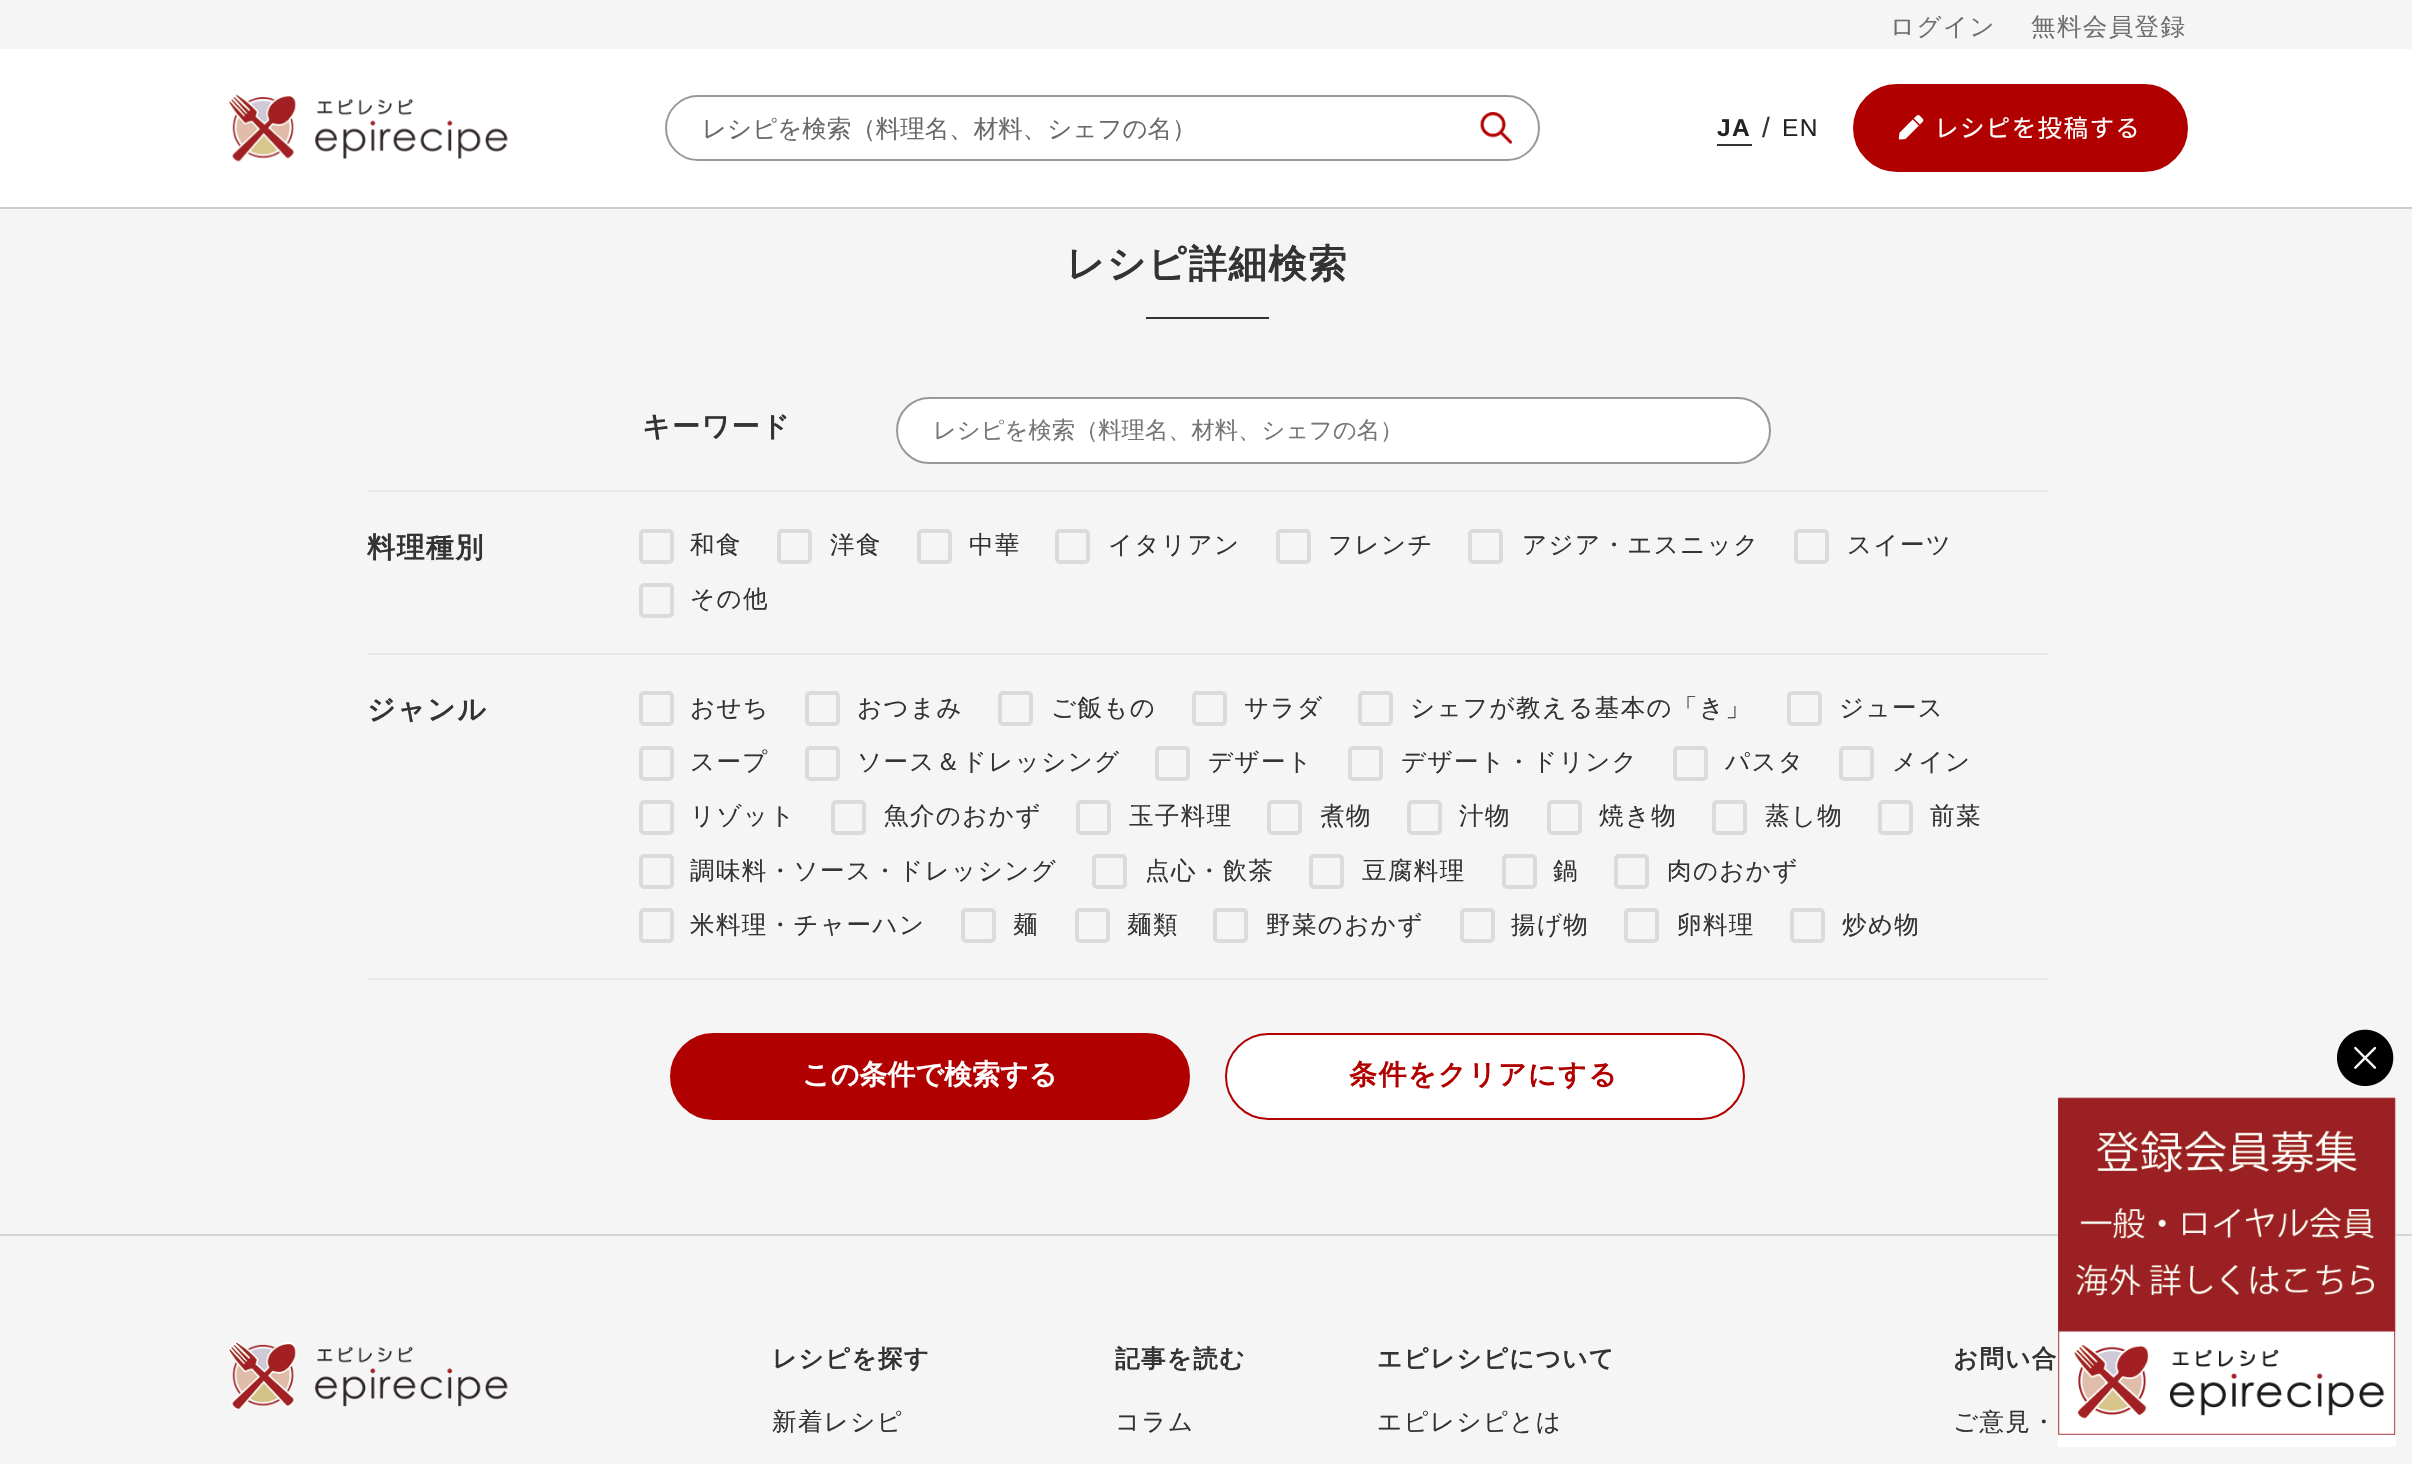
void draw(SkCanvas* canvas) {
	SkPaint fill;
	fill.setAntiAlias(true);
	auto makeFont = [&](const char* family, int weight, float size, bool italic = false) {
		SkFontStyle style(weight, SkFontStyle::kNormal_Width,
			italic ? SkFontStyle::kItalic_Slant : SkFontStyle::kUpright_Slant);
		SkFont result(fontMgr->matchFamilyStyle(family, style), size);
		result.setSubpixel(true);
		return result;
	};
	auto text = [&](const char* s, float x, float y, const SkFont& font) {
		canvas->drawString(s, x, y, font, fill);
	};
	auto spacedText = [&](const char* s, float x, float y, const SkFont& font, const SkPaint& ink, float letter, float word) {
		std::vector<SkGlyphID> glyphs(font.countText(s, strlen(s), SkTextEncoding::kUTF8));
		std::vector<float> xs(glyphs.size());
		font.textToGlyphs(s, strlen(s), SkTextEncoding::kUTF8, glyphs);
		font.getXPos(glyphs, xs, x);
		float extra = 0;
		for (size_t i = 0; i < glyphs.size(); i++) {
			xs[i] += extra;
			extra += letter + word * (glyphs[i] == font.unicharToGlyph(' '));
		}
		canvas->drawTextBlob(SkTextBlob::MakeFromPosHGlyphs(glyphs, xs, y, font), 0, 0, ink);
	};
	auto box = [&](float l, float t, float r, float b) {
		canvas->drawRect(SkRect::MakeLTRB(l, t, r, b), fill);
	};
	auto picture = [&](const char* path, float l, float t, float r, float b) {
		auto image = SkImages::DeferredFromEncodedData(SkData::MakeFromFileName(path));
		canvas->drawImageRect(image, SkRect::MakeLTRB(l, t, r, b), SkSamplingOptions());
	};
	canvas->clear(0xFFF5F5F5);
	fill.setColor(0xFFFFFFFF);
	box(0, 49, 2412, 207);
	fill.setColor(0xFFCCCCCC);
	box(0, 207, 2412, 209);
	picture("image0.png", 229, 94, 508, 162);
	fill.setStyle(SkPaint::kStroke_Style);
	fill.setStrokeWidth(2);
	fill.setColor(0xFF999999);
	canvas->drawRoundRect(SkRect::MakeLTRB(666, 96, 1539, 160), 32, 32, fill);
	picture("image1.png", 1480, 112, 1512, 144);
	fill.setStyle(SkPaint::kFill_Style);
	fill.setColor(0xFF333333);
	box(1717, 144, 1752, 146);
	fill.setColor(0xFFB10000);
	canvas->drawRoundRect(SkRect::MakeLTRB(1854, 85, 2187, 171), 43, 43, fill);
	fill.setStyle(SkPaint::kStroke_Style);
	canvas->drawRoundRect(SkRect::MakeLTRB(1854, 85, 2187, 171), 43, 43, fill);
	picture("image2.png", 1898, 115, 1924, 140);
	fill.setStyle(SkPaint::kFill_Style);
	fill.setColor(0xFF333333);
	box(1146, 317, 1269, 319);
	fill.setColor(0xFFE8E8E8);
	box(368, 490, 2048, 492);
	fill.setColor(0xFFFFFFFF);
	canvas->drawRoundRect(SkRect::MakeLTRB(897, 398, 1770, 463), 32.5f, 32.5f, fill);
	fill.setStyle(SkPaint::kStroke_Style);
	fill.setColor(0xFF999999);
	canvas->drawRoundRect(SkRect::MakeLTRB(897, 398, 1770, 463), 32.5f, 32.5f, fill);
	fill.setStyle(SkPaint::kFill_Style);
	fill.setColor(0xFFE8E8E8);
	box(368, 653, 2048, 655);
	fill.setStyle(SkPaint::kStroke_Style);
	fill.setStrokeWidth(4);
	fill.setColor(0xFFDBDBDB);
	canvas->drawRoundRect(SkRect::MakeLTRB(641, 531, 672, 562), 3, 3, fill);
	canvas->drawRoundRect(SkRect::MakeLTRB(779, 531, 810, 562), 3, 3, fill);
	canvas->drawRoundRect(SkRect::MakeLTRB(919, 531, 950, 562), 3, 3, fill);
	canvas->drawRoundRect(SkRect::MakeLTRB(1057, 531, 1088, 562), 3, 3, fill);
	canvas->drawRoundRect(SkRect::MakeLTRB(1278, 531, 1309, 562), 3, 3, fill);
	canvas->drawRoundRect(SkRect::MakeLTRB(1470, 531, 1501, 562), 3, 3, fill);
	canvas->drawRoundRect(SkRect::MakeLTRB(1796, 531, 1827, 562), 3, 3, fill);
	canvas->drawRoundRect(SkRect::MakeLTRB(641, 585, 672, 616), 3, 3, fill);
	fill.setStyle(SkPaint::kFill_Style);
	fill.setColor(0xFFE8E8E8);
	box(368, 978, 2048, 980);
	fill.setStyle(SkPaint::kStroke_Style);
	fill.setColor(0xFFDBDBDB);
	canvas->drawRoundRect(SkRect::MakeLTRB(641, 693, 672, 724), 3, 3, fill);
	canvas->drawRoundRect(SkRect::MakeLTRB(807, 693, 838, 724), 3, 3, fill);
	canvas->drawRoundRect(SkRect::MakeLTRB(1000, 693, 1031, 724), 3, 3, fill);
	canvas->drawRoundRect(SkRect::MakeLTRB(1194, 693, 1225, 724), 3, 3, fill);
	canvas->drawRoundRect(SkRect::MakeLTRB(1360, 693, 1391, 724), 3, 3, fill);
	canvas->drawRoundRect(SkRect::MakeLTRB(1789, 693, 1820, 724), 3, 3, fill);
	canvas->drawRoundRect(SkRect::MakeLTRB(641, 748, 672, 779), 3, 3, fill);
	canvas->drawRoundRect(SkRect::MakeLTRB(807, 748, 838, 779), 3, 3, fill);
	canvas->drawRoundRect(SkRect::MakeLTRB(1157, 748, 1188, 779), 3, 3, fill);
	canvas->drawRoundRect(SkRect::MakeLTRB(1350, 748, 1381, 779), 3, 3, fill);
	canvas->drawRoundRect(SkRect::MakeLTRB(1675, 748, 1706, 779), 3, 3, fill);
	canvas->drawRoundRect(SkRect::MakeLTRB(1841, 748, 1872, 779), 3, 3, fill);
	canvas->drawRoundRect(SkRect::MakeLTRB(641, 802, 672, 833), 3, 3, fill);
	canvas->drawRoundRect(SkRect::MakeLTRB(833, 802, 864, 833), 3, 3, fill);
	canvas->drawRoundRect(SkRect::MakeLTRB(1078, 802, 1109, 833), 3, 3, fill);
	canvas->drawRoundRect(SkRect::MakeLTRB(1269, 802, 1300, 833), 3, 3, fill);
	canvas->drawRoundRect(SkRect::MakeLTRB(1409, 802, 1440, 833), 3, 3, fill);
	canvas->drawRoundRect(SkRect::MakeLTRB(1549, 802, 1580, 833), 3, 3, fill);
	canvas->drawRoundRect(SkRect::MakeLTRB(1714, 802, 1745, 833), 3, 3, fill);
	canvas->drawRoundRect(SkRect::MakeLTRB(1880, 802, 1911, 833), 3, 3, fill);
	canvas->drawRoundRect(SkRect::MakeLTRB(641, 856, 672, 887), 3, 3, fill);
	canvas->drawRoundRect(SkRect::MakeLTRB(1094, 856, 1125, 887), 3, 3, fill);
	canvas->drawRoundRect(SkRect::MakeLTRB(1311, 856, 1342, 887), 3, 3, fill);
	canvas->drawRoundRect(SkRect::MakeLTRB(1504, 856, 1535, 887), 3, 3, fill);
	canvas->drawRoundRect(SkRect::MakeLTRB(1616, 856, 1647, 887), 3, 3, fill);
	canvas->drawRoundRect(SkRect::MakeLTRB(641, 910, 672, 941), 3, 3, fill);
	canvas->drawRoundRect(SkRect::MakeLTRB(963, 910, 994, 941), 3, 3, fill);
	canvas->drawRoundRect(SkRect::MakeLTRB(1077, 910, 1108, 941), 3, 3, fill);
	canvas->drawRoundRect(SkRect::MakeLTRB(1215, 910, 1246, 941), 3, 3, fill);
	canvas->drawRoundRect(SkRect::MakeLTRB(1462, 910, 1493, 941), 3, 3, fill);
	canvas->drawRoundRect(SkRect::MakeLTRB(1626, 910, 1657, 941), 3, 3, fill);
	canvas->drawRoundRect(SkRect::MakeLTRB(1792, 910, 1823, 941), 3, 3, fill);
	fill.setStyle(SkPaint::kFill_Style);
	fill.setColor(0xFFB10000);
	canvas->drawRoundRect(SkRect::MakeLTRB(671, 1034, 1189, 1119), 42.5f, 42.5f, fill);
	fill.setStyle(SkPaint::kStroke_Style);
	fill.setStrokeWidth(2);
	canvas->drawRoundRect(SkRect::MakeLTRB(671, 1034, 1189, 1119), 42.5f, 42.5f, fill);
	fill.setStyle(SkPaint::kFill_Style);
	fill.setColor(0xFFFFFFFF);
	canvas->drawRoundRect(SkRect::MakeLTRB(1226, 1034, 1744, 1119), 42.5f, 42.5f, fill);
	fill.setStyle(SkPaint::kStroke_Style);
	fill.setColor(0xFFB10000);
	canvas->drawRoundRect(SkRect::MakeLTRB(1226, 1034, 1744, 1119), 42.5f, 42.5f, fill);
	fill.setStyle(SkPaint::kFill_Style);
	fill.setColor(0xFFD5D5D9);
	box(0, 1234, 2412, 1236);
	picture("image3.png", 228, 1341, 508, 1410);
	picture("image4.png", 2336, 1029, 2394, 1087);
	fill.setColor(0xFFFFFFFF);
	box(2058, 1097, 2396, 1447);
	picture("image5.png", 2058, 1097, 2396, 1435);
	auto font1 = makeFont("WenQuanYi Zen Hei", 500, 24.5f);
	fill.setColor(0xFF6F6F6F);
	spacedText("ログイン", 1890, 35, font1, fill, 1.4f, 0);
	spacedText("無料会員登録", 2031, 35, font1, fill, 1.4f, 0);
	fill.setColor(0xFF696969);
	text("レシピを検索（料理名、材料、シェフの名）", 702, 137, font1);
	auto font2 = makeFont("Liberation Sans", 700, 24.5f);
	fill.setColor(0xFF222222);
	spacedText("JA", 1717, 136, font2, fill, 1.4f, 0);
	auto font3 = makeFont("Liberation Sans", 400, 28);
	fill.setColor(0xFF333333);
	spacedText("/", 1762, 137, font3, fill, 1.4f, 0);
	auto font4 = makeFont("Liberation Sans", 400, 24.5f);
	fill.setColor(0xFF222222);
	spacedText("EN", 1782, 136, font4, fill, 1.4f, 0);
	auto font5 = makeFont("Noto Sans JP", 400, 24.5f);
	fill.setColor(0xFFFFFFFF);
	spacedText("レシピを投稿する", 1934, 137, font5, fill, 1.4f, 0);
	auto font6 = makeFont("WenQuanYi Zen Hei", 700, 38.5f);
	fill.setColor(0xFF333333);
	spacedText("レシピ詳細検索", 1066, 277, font6, fill, 1.4f, 0);
	auto font7 = makeFont("WenQuanYi Zen Hei", 700, 28);
	spacedText("キーワード", 642, 436, font7, fill, 1.4f, 0);
	auto font8 = makeFont("WenQuanYi Zen Hei", 500, 23.3f);
	fill.setColor(0xFF757575);
	text("レシピを検索（料理名、材料、シェフの名）", 933, 438, font8);
	fill.setColor(0xFF333333);
	spacedText("料理種別", 367, 557, font7, fill, 1.4f, 0);
	spacedText("和食", 690, 553, font1, fill, 1.4f, 0);
	spacedText("洋食", 830, 553, font1, fill, 1.4f, 0);
	spacedText("中華", 969, 553, font1, fill, 1.4f, 0);
	spacedText("イタリアン", 1108, 553, font1, fill, 1.4f, 0);
	spacedText("フレンチ", 1328, 553, font1, fill, 1.4f, 0);
	spacedText("アジア・エスニック", 1522, 553, font1, fill, 1.4f, 0);
	spacedText("スイーツ", 1847, 553, font1, fill, 1.4f, 0);
	spacedText("その他", 690, 607, font1, fill, 1.4f, 0);
	spacedText("ジャンル", 367, 719, font7, fill, 1.4f, 0);
	spacedText("おせち", 690, 716, font1, fill, 1.4f, 0);
	spacedText("おつまみ", 857, 716, font1, fill, 1.4f, 0);
	spacedText("ご飯もの", 1051, 716, font1, fill, 1.4f, 0);
	spacedText("サラダ", 1244, 716, font1, fill, 1.4f, 0);
	spacedText("シェフが教える基本の「き」", 1410, 716, font1, fill, 1.4f, 0);
	spacedText("ジュース", 1839, 716, font1, fill, 1.4f, 0);
	spacedText("スープ", 690, 770, font1, fill, 1.4f, 0);
	spacedText("ソース＆ドレッシング", 857, 770, font1, fill, 1.4f, 0);
	spacedText("デザート", 1208, 770, font1, fill, 1.4f, 0);
	spacedText("デザート・ドリンク", 1401, 770, font1, fill, 1.4f, 0);
	spacedText("パスタ", 1725, 770, font1, fill, 1.4f, 0);
	spacedText("メイン", 1892, 770, font1, fill, 1.4f, 0);
	spacedText("リゾット", 690, 824, font1, fill, 1.4f, 0);
	spacedText("魚介のおかず", 884, 824, font1, fill, 1.4f, 0);
	spacedText("玉子料理", 1129, 824, font1, fill, 1.4f, 0);
	spacedText("煮物", 1320, 824, font1, fill, 1.4f, 0);
	spacedText("汁物", 1459, 824, font1, fill, 1.4f, 0);
	spacedText("焼き物", 1599, 824, font1, fill, 1.4f, 0);
	spacedText("蒸し物", 1765, 824, font1, fill, 1.4f, 0);
	spacedText("前菜", 1930, 824, font1, fill, 1.4f, 0);
	spacedText("調味料・ソース・ドレッシング", 690, 879, font1, fill, 1.4f, 0);
	spacedText("点心・飲茶", 1145, 879, font1, fill, 1.4f, 0);
	spacedText("豆腐料理", 1362, 879, font1, fill, 1.4f, 0);
	spacedText("鍋", 1553, 879, font1, fill, 1.4f, 0);
	spacedText("肉のおかず", 1667, 879, font1, fill, 1.4f, 0);
	spacedText("米料理・チャーハン", 690, 933, font1, fill, 1.4f, 0);
	spacedText("麺", 1013, 933, font1, fill, 1.4f, 0);
	spacedText("麺類", 1127, 933, font1, fill, 1.4f, 0);
	spacedText("野菜のおかず", 1266, 933, font1, fill, 1.4f, 0);
	spacedText("揚げ物", 1511, 933, font1, fill, 1.4f, 0);
	spacedText("卵料理", 1677, 933, font1, fill, 1.4f, 0);
	spacedText("炒め物", 1842, 933, font1, fill, 1.4f, 0);
	fill.setColor(0xFFFFFFFF);
	text("この条件で検索する", 802, 1084, font7);
	fill.setColor(0xFFB10000);
	spacedText("条件をクリアにする", 1349, 1084, font7, fill, 1.4f, 0);
	auto font9 = makeFont("WenQuanYi Zen Hei", 700, 24.5f);
	fill.setColor(0xFF333333);
	spacedText("レシピを探す", 772, 1367, font9, fill, 1.4f, 0);
	spacedText("新着レシピ", 772, 1430, font1, fill, 1.4f, 0);
	spacedText("記事を読む", 1115, 1367, font9, fill, 1.4f, 0);
	spacedText("コラム", 1115, 1430, font1, fill, 1.4f, 0);
	spacedText("エピレシピについて", 1377, 1367, font9, fill, 1.4f, 0);
	spacedText("エピレシピとは", 1377, 1430, font1, fill, 1.4f, 0);
	spacedText("お問い合", 1953, 1367, font9, fill, 1.4f, 0);
	spacedText("ご意見・", 1953, 1430, font1, fill, 1.4f, 0);
}
